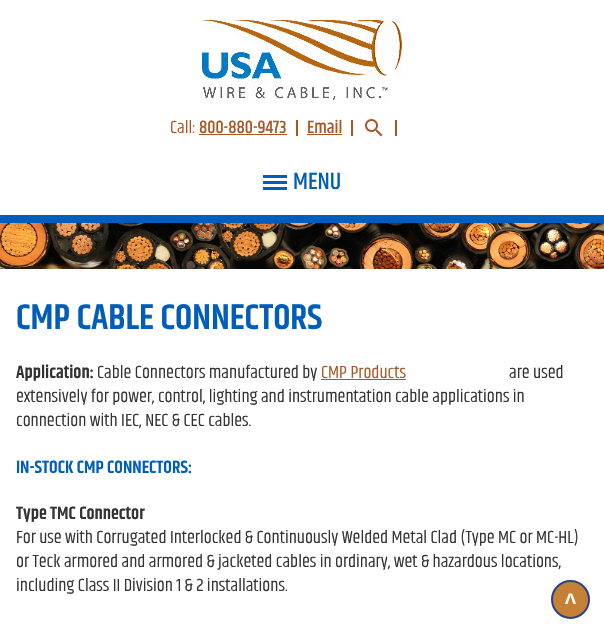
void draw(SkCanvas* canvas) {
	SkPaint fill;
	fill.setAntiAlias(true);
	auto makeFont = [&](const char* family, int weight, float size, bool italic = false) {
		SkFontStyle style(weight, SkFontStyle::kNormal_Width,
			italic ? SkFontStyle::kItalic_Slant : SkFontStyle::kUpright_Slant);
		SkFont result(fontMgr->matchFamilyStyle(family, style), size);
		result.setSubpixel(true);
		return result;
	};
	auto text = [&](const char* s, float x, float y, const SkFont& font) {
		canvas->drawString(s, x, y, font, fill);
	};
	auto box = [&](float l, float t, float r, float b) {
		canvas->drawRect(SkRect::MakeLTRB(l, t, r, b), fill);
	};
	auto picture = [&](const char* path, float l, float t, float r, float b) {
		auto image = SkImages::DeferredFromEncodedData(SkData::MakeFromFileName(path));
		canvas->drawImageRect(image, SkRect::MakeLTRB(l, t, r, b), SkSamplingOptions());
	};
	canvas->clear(0xFFFFFFFF);
	picture("image0.png", 202, 20, 402, 100);
	fill.setColor(0xFFA95622);
	box(199, 134, 287, 135);
	box(296, 120, 298, 136);
	box(307, 134, 342, 135);
	box(351, 120, 353, 136);
	picture("image1.png", 365, 119, 383, 137);
	box(395, 120, 397, 136);
	fill.setColor(0xFF005EBA);
	box(263, 181, 287, 184);
	box(263, 175, 287, 178);
	box(263, 187, 287, 190);
	box(0, 215, 604, 223);
	picture("image2.png", 0, 223, 604, 269);
	fill.setColor(0xFFA95622);
	box(321, 379, 406, 380);
	fill.setColor(0xFFC58035);
	canvas->drawCircle(570.5f, 599.5f, 18.5f, fill);
	fill.setStyle(SkPaint::kStroke_Style);
	fill.setStrokeWidth(2);
	fill.setColor(0xFF26428F);
	canvas->drawCircle(570.5f, 599.5f, 18.5f, fill);
	auto font1 = makeFont("Khand", 400, 18);
	fill.setStyle(SkPaint::kFill_Style);
	fill.setColor(0xFFA95622);
	text("Call:", 170, 133, font1);
	auto font2 = makeFont("Khand", 500, 18);
	text("800-880-9473", 199, 133, font2);
	text("Email", 307, 133, font2);
	auto font3 = makeFont("Khand", 500, 24);
	fill.setColor(0xFF005EBA);
	text("MENU", 293, 189, font3);
	auto font4 = makeFont("Khand", 600, 36);
	text("CMP CABLE CONNECTORS", 16, 329, font4);
	auto font5 = makeFont("Khand", 600, 18);
	fill.setColor(0xFF333333);
	text("Application:", 16, 378, font5);
	text("Cable Connectors manufactured by", 97, 378, font1);
	fill.setColor(0xFFA95622);
	text("CMP Products", 321, 378, font1);
	fill.setColor(0xFF333333);
	text("are used", 509, 378, font1);
	text("extensively for power, control, lighting and instrumentation cable applications in", 16, 402, font1);
	text("connection with IEC, NEC & CEC cables.", 16, 426, font1);
	fill.setColor(0xFF005EBA);
	text("IN-STOCK CMP CONNECTORS:", 16, 473, font5);
	fill.setColor(0xFF333333);
	text("Type TMC Connector", 16, 519, font5);
	text("For use with Corrugated Interlocked & Continuously Welded Metal Clad (Type MC or MC-HL)", 16, 543, font1);
	text("or Teck armored and armored & jacketed cables in ordinary, wet & hazardous locations,", 16, 567, font1);
	text("including Class II Division 1 & 2 installations.", 16, 591, font1);
	auto font6 = makeFont("Khand", 400, 35);
	fill.setColor(0xFFFFFFFF);
	text("^", 565, 617, font6);
}
